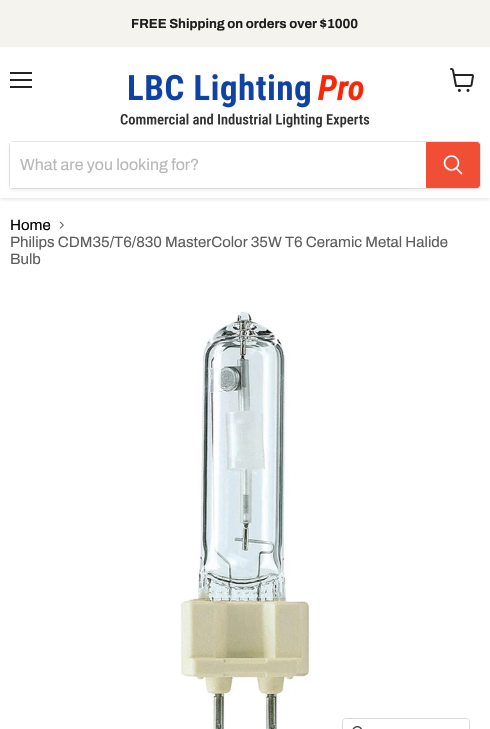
void draw(SkCanvas* canvas) {
	SkPaint fill;
	fill.setAntiAlias(true);
	auto makeFont = [&](const char* family, int weight, float size, bool italic = false) {
		SkFontStyle style(weight, SkFontStyle::kNormal_Width,
			italic ? SkFontStyle::kItalic_Slant : SkFontStyle::kUpright_Slant);
		SkFont result(fontMgr->matchFamilyStyle(family, style), size);
		result.setSubpixel(true);
		return result;
	};
	auto text = [&](const char* s, float x, float y, const SkFont& font) {
		canvas->drawString(s, x, y, font, fill);
	};
	auto box = [&](float l, float t, float r, float b) {
		canvas->drawRect(SkRect::MakeLTRB(l, t, r, b), fill);
	};
	auto roundBox = [&](float l, float t, float r, float b, float radius) {
		canvas->drawRoundRect(SkRect::MakeLTRB(l, t, r, b), radius, radius, fill);
	};
	auto picture = [&](const char* path, float l, float t, float r, float b) {
		auto image = SkImages::DeferredFromEncodedData(SkData::MakeFromFileName(path));
		canvas->drawImageRect(image, SkRect::MakeLTRB(l, t, r, b), SkSamplingOptions());
	};
	canvas->clear(0xFFFFFFFF);
	canvas->save();
	canvas->clipRect(SkRect::MakeLTRB(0, 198, 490, 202));
	fill.setColor(0x40808080);
	fill.setMaskFilter(SkMaskFilter::MakeBlur(kNormal_SkBlurStyle, 2));
	canvas->drawRect(SkRect::MakeLTRB(0, 48, 490, 199), fill);
	fill.setMaskFilter(nullptr);
	canvas->restore();
	fill.setColor(0xFFF5F3ED);
	box(0, 0, 490, 47);
	fill.setColor(0xFF222323);
	box(10, 72, 32, 74);
	box(10, 79, 32, 81);
	box(10, 86, 32, 88);
	picture("image0.png", 450, 68, 474, 92);
	picture("image1.png", 120, 73, 370, 128);
	fill.setColor(0x1C808080);
	fill.setMaskFilter(SkMaskFilter::MakeBlur(kNormal_SkBlurStyle, 1.5f));
	canvas->drawRoundRect(SkRect::MakeLTRB(9, 143, 481, 191), 4, 4, fill);
	fill.setMaskFilter(nullptr);
	fill.setStyle(SkPaint::kStroke_Style);
	fill.setStrokeWidth(1);
	fill.setColor(0x33808080);
	canvas->drawRoundRect(SkRect::MakeLTRB(9.5f, 141.5f, 480.5f, 188.5f), 3.5f, 3.5f, fill);
	fill.setStyle(SkPaint::kFill_Style);
	fill.setColor(0xFFFFFFFF);
	box(10, 142, 426, 188);
	fill.setColor(0xFFF04F36);
	canvas->drawPath(SkPathBuilder().moveTo(426.5f, 142.5f).lineTo(477, 142.5f).cubicTo(478.5f, 142.5f, 479.5f, 143.5f, 479.5f, 145).lineTo(479.5f, 185).cubicTo(479.5f, 186.5f, 478.5f, 187.5f, 477, 187.5f).lineTo(426.5f, 187.5f).close().detach(), fill);
	fill.setStyle(SkPaint::kStroke_Style);
	canvas->drawPath(SkPathBuilder().moveTo(426.5f, 142.5f).lineTo(477, 142.5f).cubicTo(478.5f, 142.5f, 479.5f, 143.5f, 479.5f, 145).lineTo(479.5f, 185).cubicTo(479.5f, 186.5f, 478.5f, 187.5f, 477, 187.5f).lineTo(426.5f, 187.5f).close().detach(), fill);
	fill.setStrokeWidth(1.7f);
	fill.setStrokeCap(SkPaint::kRound_Cap);
	fill.setColor(0xFFFFFFFF);
	canvas->drawPath(SkPathBuilder().moveTo(461.5f, 173.5f).lineTo(456.5f, 168.5f).detach(), fill);
	fill.setStrokeCap(SkPaint::kButt_Cap);
	canvas->drawCircle(451.5f, 163, 7, fill);
	picture("image2.png", 59, 221, 64, 229);
	picture("image3.png", 179, 311, 311, 729);
	fill.setStrokeWidth(1);
	fill.setColor(0xFFD9D9D9);
	canvas->drawRoundRect(SkRect::MakeLTRB(342.5f, 718.5f, 469.5f, 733.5f), 3.5f, 3.5f, fill);
	fill.setStyle(SkPaint::kFill_Style);
	fill.setColor(0xE6FFFFFF);
	roundBox(343, 719, 469, 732, 3);
	picture("image4.png", 352, 726, 362, 729);
	auto font1 = makeFont("Archivo", 700, 13.1f);
	fill.setColor(0xFF1D1D1D);
	text("FREE Shipping on orders over $1000", 131, 28, font1);
	auto font2 = makeFont("Archivo", 400, 16);
	fill.setColor(0xFFB8B8B8);
	text("What are you looking for?", 20, 170, font2);
	auto font3 = makeFont("Archivo", 400, 15);
	fill.setColor(0xFF000000);
	text("Home", 10, 230, font3);
	fill.setColor(0xFF5E5D5D);
	text("Philips CDM35/T6/830 MasterColor 35W T6 Ceramic Metal Halide", 10, 247, font3);
	text("Bulb", 10, 264, font3);
}
